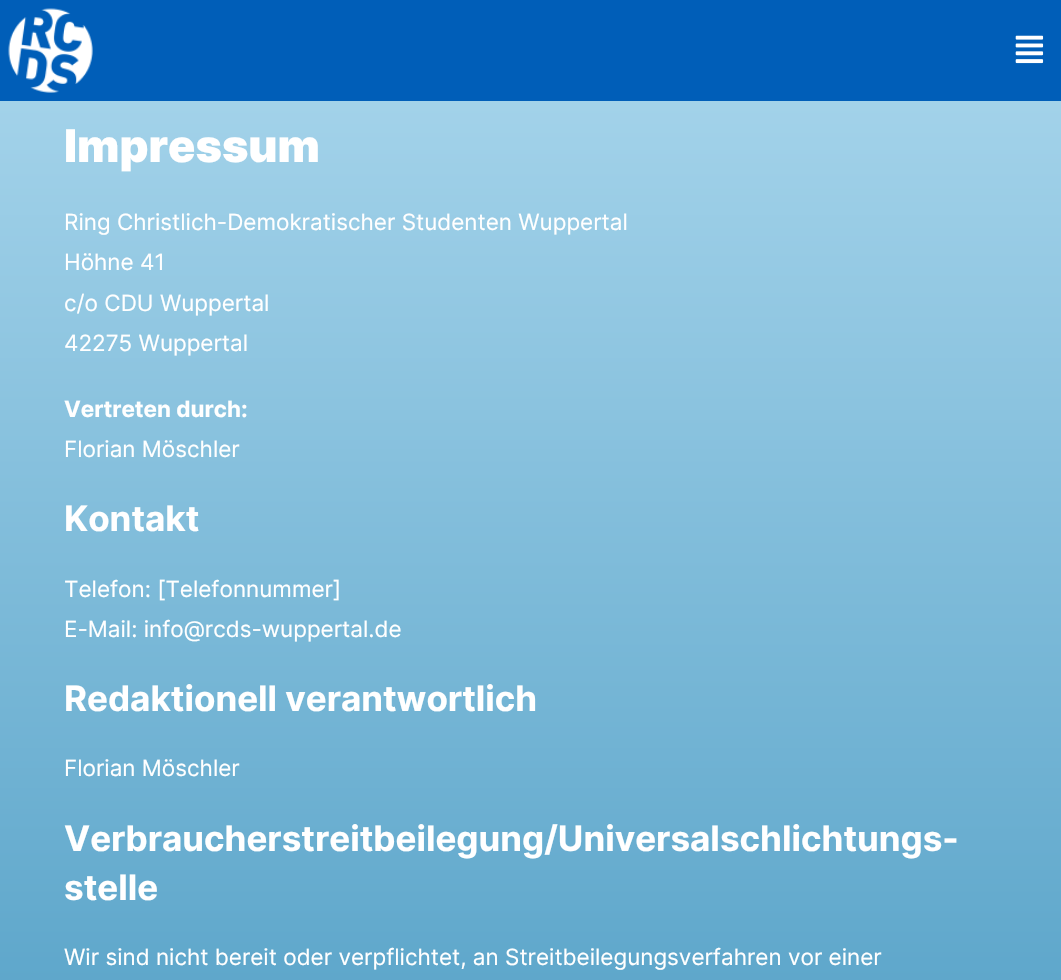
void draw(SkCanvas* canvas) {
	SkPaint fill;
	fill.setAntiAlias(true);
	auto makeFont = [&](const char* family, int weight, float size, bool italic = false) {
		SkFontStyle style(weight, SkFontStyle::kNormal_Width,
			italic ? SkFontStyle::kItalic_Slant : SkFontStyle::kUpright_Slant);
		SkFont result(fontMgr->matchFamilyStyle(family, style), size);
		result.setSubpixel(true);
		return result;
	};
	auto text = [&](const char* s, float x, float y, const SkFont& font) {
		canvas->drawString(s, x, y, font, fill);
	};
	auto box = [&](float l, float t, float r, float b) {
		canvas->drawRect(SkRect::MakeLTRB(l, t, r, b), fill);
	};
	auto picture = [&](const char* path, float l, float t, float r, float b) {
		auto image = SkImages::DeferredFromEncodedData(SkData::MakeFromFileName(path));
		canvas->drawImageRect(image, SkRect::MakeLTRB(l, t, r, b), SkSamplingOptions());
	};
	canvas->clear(0xFFFFFFFF);
	{
		const SkColor colors[] = {0xFFAAD7ED, 0xFF348CB8};
		const float stops[] = {0, 1};
		const SkPoint ends[] = {{531, 0}, {531, 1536}};
		fill.setShader(SkGradientShader::MakeLinear(ends, colors, stops, 2, SkTileMode::kClamp));
		fill.setAlpha(255);
	}
	box(0, 101, 1061, 980);
	fill.setShader(nullptr);
	fill.setColor(0xFF005EB8);
	box(0, 0, 1061, 101);
	picture("image0.png", 8, 8, 93, 93);
	picture("image1.png", 1015, 35, 1044, 64);
	auto font1 = makeFont("Inter", 900, 45);
	fill.setColor(0xFFFFFFFF);
	text("Impressum", 64, 162, font1);
	auto font2 = makeFont("Inter", 400, 22.5f);
	text("Ring Christlich-Demokratischer Studenten Wuppertal", 64, 230, font2);
	text("Höhne 41", 64, 270, font2);
	text("c/o CDU Wuppertal", 64, 311, font2);
	text("42275 Wuppertal", 64, 351, font2);
	auto font3 = makeFont("Inter", 700, 22.5f);
	text("Vertreten durch:", 64, 417, font3);
	text("Florian Möschler", 64, 457, font2);
	auto font4 = makeFont("Inter", 700, 35);
	text("Kontakt", 64, 531, font4);
	text("Telefon: [Telefonnummer]", 64, 597, font2);
	text("E-Mail: info@rcds-wuppertal.de", 64, 637, font2);
	text("Redaktionell verantwortlich", 64, 711, font4);
	text("Florian Möschler", 64, 776, font2);
	text("Verbraucherstreitbeilegung/Universalschlichtungs-", 64, 851, font4);
	text("stelle", 64, 900, font4);
	text("Wir sind nicht bereit oder verpflichtet, an Streitbeilegungsverfahren vor einer", 64, 965, font2);
}
